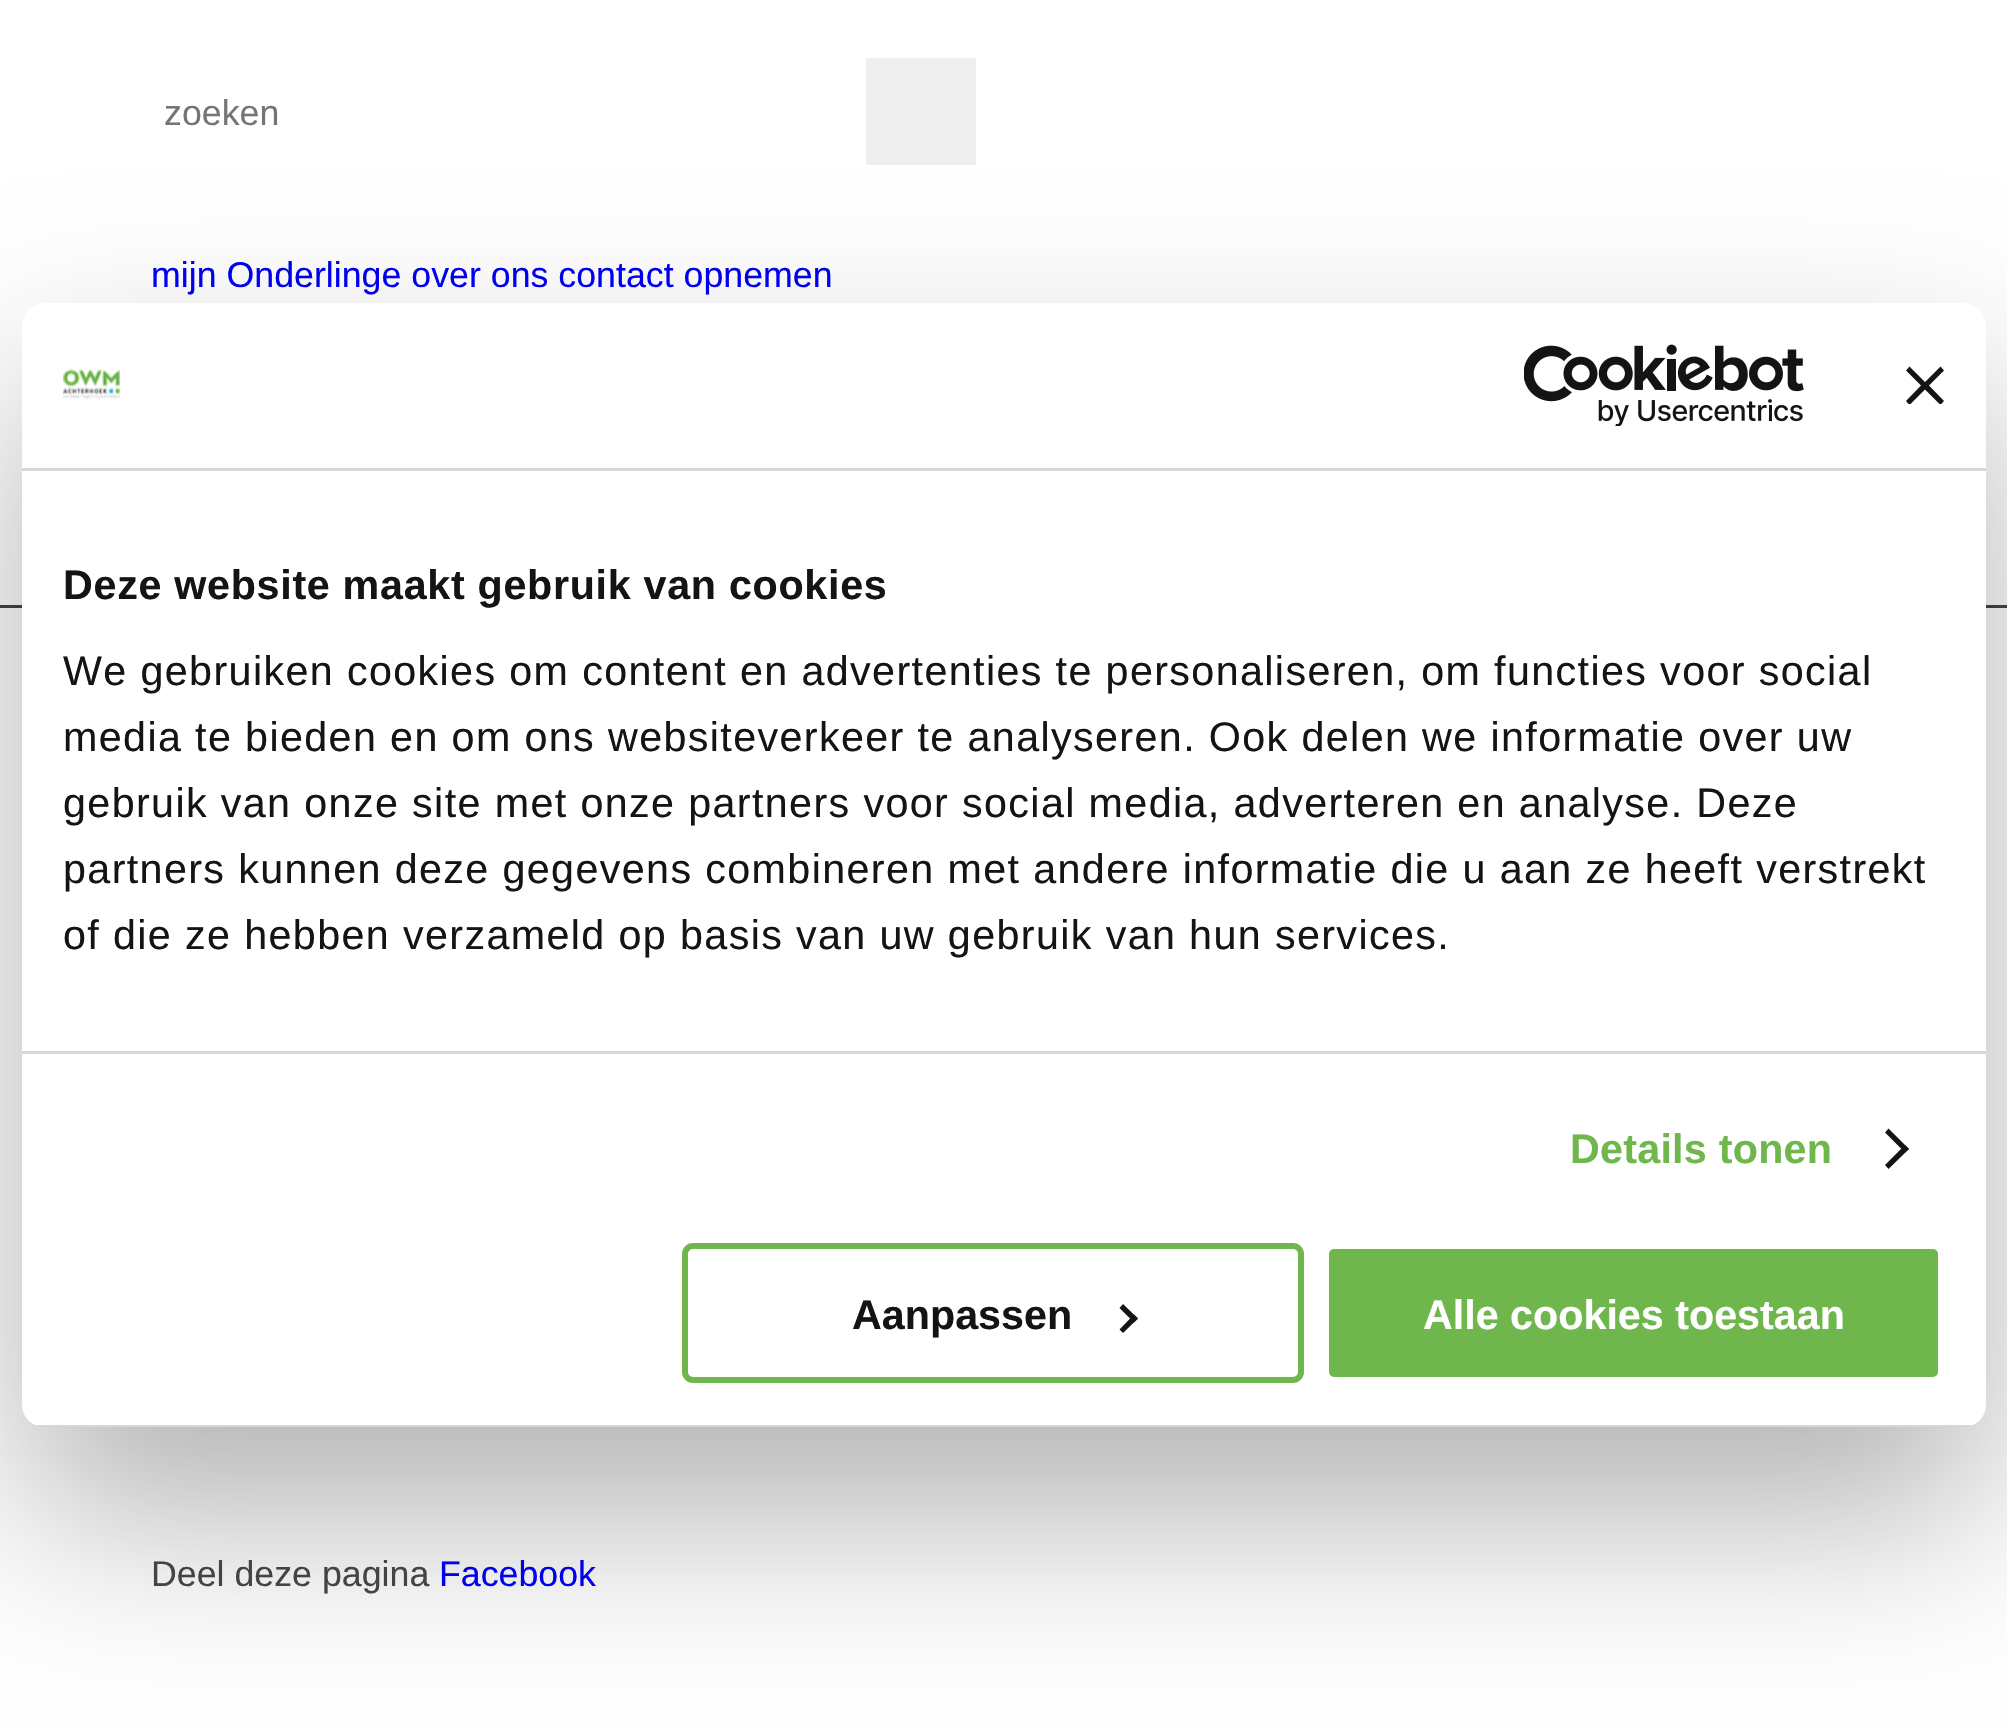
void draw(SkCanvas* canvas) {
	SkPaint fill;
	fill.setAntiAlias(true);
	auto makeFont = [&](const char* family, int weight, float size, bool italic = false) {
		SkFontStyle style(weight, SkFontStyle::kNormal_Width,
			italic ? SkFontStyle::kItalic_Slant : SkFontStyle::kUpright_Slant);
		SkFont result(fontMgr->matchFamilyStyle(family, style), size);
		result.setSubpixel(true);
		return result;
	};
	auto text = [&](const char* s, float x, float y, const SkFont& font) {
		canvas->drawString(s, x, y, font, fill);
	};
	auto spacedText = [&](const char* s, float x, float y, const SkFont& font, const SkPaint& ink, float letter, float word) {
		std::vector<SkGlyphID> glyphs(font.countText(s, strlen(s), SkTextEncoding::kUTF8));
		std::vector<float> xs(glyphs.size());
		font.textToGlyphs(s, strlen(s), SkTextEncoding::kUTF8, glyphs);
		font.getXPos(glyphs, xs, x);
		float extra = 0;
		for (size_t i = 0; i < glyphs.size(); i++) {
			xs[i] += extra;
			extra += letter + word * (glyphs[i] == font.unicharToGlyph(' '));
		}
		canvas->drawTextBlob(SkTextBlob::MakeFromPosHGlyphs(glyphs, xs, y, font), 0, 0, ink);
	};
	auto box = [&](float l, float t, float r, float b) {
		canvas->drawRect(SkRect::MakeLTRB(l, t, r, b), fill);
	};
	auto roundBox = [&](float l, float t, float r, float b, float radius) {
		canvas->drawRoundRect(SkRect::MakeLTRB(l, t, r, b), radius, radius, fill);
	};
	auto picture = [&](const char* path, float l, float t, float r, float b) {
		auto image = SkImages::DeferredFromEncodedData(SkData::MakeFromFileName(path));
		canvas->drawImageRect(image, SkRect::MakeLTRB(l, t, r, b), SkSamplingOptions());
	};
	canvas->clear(0xFFFFFFFF);
	fill.setColor(0xFFEFEFEF);
	box(866, 58, 976, 165);
	fill.setColor(0xFF444444);
	box(0, 605, 2007, 608);
	fill.setColor(0x4D000000);
	fill.setMaskFilter(SkMaskFilter::MakeBlur(kNormal_SkBlurStyle, 93.5f));
	canvas->drawRoundRect(SkRect::MakeLTRB(22, 391, 1986, 1515), 22, 22, fill);
	fill.setMaskFilter(nullptr);
	fill.setColor(0xFFFFFFFF);
	roundBox(22, 303, 1986, 1427, 22);
	fill.setColor(0xFFD6D6D6);
	box(22, 468, 1986, 471);
	picture("image0.png", 63, 368, 120, 400);
	picture("image1.png", 1524, 344, 1804, 426);
	canvas->save();
	canvas->clipRect(SkRect::MakeLTRB(1906, 366, 1944, 404));
	fill.setColor(0xFF141414);
	canvas->drawPath(SkPathBuilder().moveTo(1944, 370.5f).lineTo(1940.5f, 366.5f).lineTo(1925, 382).lineTo(1909.5f, 366.5f).lineTo(1906, 370.5f).lineTo(1921, 385.5f).lineTo(1906, 401).lineTo(1909.5f, 405).lineTo(1925, 389.5f).lineTo(1940.5f, 405).lineTo(1944, 401).lineTo(1929, 385.5f).close().detach(), fill);
	canvas->restore();
	fill.setColor(0xFFD6D6D6);
	box(22, 1051, 1986, 1054);
	fill.setColor(0xFF141414);
	canvas->drawPath(SkPathBuilder().moveTo(1888.5f, 1128.5f).lineTo(1909, 1149).lineTo(1905, 1152.5f).lineTo(1885, 1132.5f).close().detach(), fill);
	canvas->drawPath(SkPathBuilder().moveTo(1905, 1145).lineTo(1909, 1149).lineTo(1888.5f, 1169).lineTo(1885, 1165).close().detach(), fill);
	canvas->save();
	canvas->clipPath(SkPathBuilder().moveTo(44, 303).lineTo(1964, 303).cubicTo(1976, 303, 1986, 313, 1986, 325).lineTo(1986, 1405).cubicTo(1986, 1417, 1976, 1427, 1964, 1427).lineTo(44, 1427).cubicTo(32, 1427, 22, 1417, 22, 1405).lineTo(22, 325).cubicTo(22, 313, 32, 303, 44, 303).close().detach(), true);
	fill.setColor(0xFFD6D6D6);
	box(35, 1425, 1973, 1427);
	canvas->restore();
	fill.setStyle(SkPaint::kStroke_Style);
	fill.setStrokeWidth(6);
	fill.setColor(0xFF6FB74C);
	canvas->drawRoundRect(SkRect::MakeLTRB(685, 1246, 1301, 1380), 8, 8, fill);
	fill.setStyle(SkPaint::kFill_Style);
	fill.setColor(0xFF141414);
	canvas->drawPath(SkPathBuilder().moveTo(1123, 1304).lineTo(1138, 1318.5f).lineTo(1134, 1322.5f).lineTo(1119.5f, 1308).close().detach(), fill);
	canvas->drawPath(SkPathBuilder().moveTo(1134, 1314.5f).lineTo(1138, 1318.5f).lineTo(1123, 1333).lineTo(1119.5f, 1329.5f).close().detach(), fill);
	fill.setColor(0xFF6FB74C);
	canvas->drawRoundRect(SkRect::MakeLTRB(1326, 1246, 1941, 1380), 8, 8, fill);
	fill.setStyle(SkPaint::kStroke_Style);
	fill.setColor(0xFFFFFFFF);
	canvas->drawRoundRect(SkRect::MakeLTRB(1326, 1246, 1941, 1380), 8, 8, fill);
	auto font1 = makeFont("Liberation Sans", 400, 35.75f);
	fill.setStyle(SkPaint::kFill_Style);
	fill.setColor(0xFF757575);
	text("zoeken", 164, 125, font1);
	fill.setColor(0xFF0000EE);
	text("mijn Onderlinge over ons contact opnemen", 151, 287, font1);
	fill.setColor(0xFF444444);
	text("Deel deze pagina", 151, 1586, font1);
	fill.setColor(0xFF0000EE);
	text("Facebook", 439, 1586, font1);
	auto font2 = makeFont("Liberation Sans", 700, 41.25f);
	fill.setColor(0xFF141414);
	spacedText("Deze website maakt gebruik van cookies", 63, 599, font2, fill, 0.7f, 0);
	auto font3 = makeFont("Liberation Sans", 400, 41.25f);
	spacedText("We gebruiken cookies om content en advertenties te personaliseren, om functies voor social", 63, 685, font3, fill, 1.38f, 0);
	spacedText("media te bieden en om ons websiteverkeer te analyseren. Ook delen we informatie over uw", 63, 751, font3, fill, 1.38f, 0);
	spacedText("gebruik van onze site met onze partners voor social media, adverteren en analyse. Deze", 63, 817, font3, fill, 1.38f, 0);
	spacedText("partners kunnen deze gegevens combineren met andere informatie die u aan ze heeft verstrekt", 63, 883, font3, fill, 1.38f, 0);
	spacedText("of die ze hebben verzameld op basis van uw gebruik van hun services.", 63, 949, font3, fill, 1.38f, 0);
	fill.setColor(0xFF6FB74C);
	spacedText("Details tonen", 1570, 1163, font2, fill, 0.25f, 0);
	fill.setColor(0xFF141414);
	text("Aanpassen", 852, 1329, font2);
	fill.setColor(0xFFFFFFFF);
	text("Alle cookies toestaan", 1423, 1329, font2);
}
